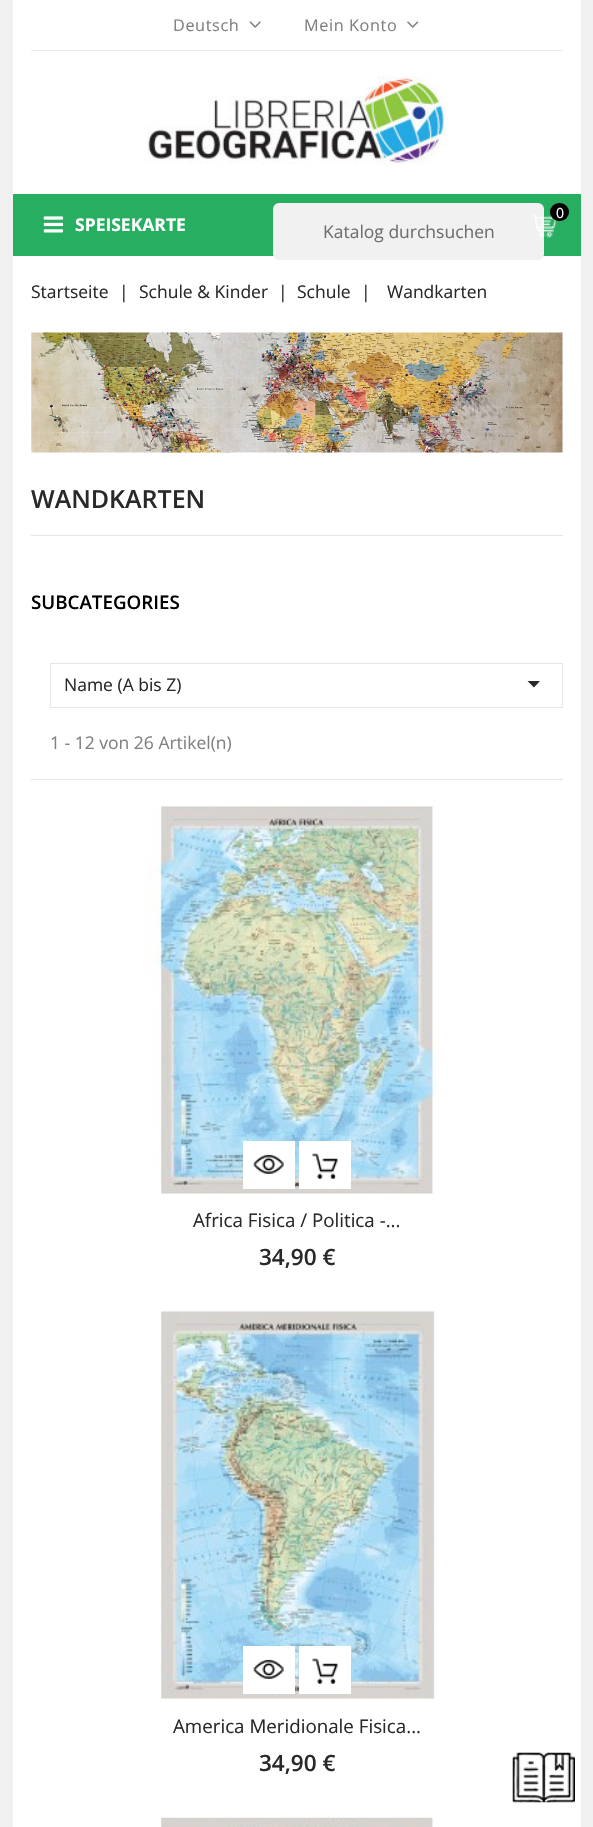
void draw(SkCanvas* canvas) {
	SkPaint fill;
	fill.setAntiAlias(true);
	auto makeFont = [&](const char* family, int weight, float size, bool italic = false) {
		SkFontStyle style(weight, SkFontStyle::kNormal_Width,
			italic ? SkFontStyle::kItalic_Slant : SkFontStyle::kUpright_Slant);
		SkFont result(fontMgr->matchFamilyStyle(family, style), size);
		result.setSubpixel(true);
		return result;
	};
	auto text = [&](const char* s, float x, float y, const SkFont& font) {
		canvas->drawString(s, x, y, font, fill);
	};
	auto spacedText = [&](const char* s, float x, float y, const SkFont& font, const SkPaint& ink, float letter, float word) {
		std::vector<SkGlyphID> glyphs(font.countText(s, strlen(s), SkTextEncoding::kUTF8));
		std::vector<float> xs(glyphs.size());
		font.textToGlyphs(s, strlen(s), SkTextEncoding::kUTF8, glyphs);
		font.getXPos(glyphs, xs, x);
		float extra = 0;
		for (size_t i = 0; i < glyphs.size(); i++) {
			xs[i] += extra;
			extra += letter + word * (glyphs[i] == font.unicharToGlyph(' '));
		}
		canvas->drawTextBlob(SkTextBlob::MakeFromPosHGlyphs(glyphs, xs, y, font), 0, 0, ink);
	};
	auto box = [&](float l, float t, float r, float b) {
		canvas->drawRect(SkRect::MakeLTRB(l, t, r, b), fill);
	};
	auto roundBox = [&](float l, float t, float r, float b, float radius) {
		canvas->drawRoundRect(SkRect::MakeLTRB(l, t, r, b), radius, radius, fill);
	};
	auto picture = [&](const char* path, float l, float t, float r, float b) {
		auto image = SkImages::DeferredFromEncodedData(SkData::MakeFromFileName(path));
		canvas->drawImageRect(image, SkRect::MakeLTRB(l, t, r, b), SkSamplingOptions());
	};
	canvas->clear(0xFFF0F0F0);
	fill.setColor(0xFFFFFFFF);
	box(13, 0, 581, 194);
	fill.setColor(0xFFEBEBEB);
	box(31, 50, 563, 51);
	picture("image0.png", 249, 21, 261, 28);
	picture("image1.png", 407, 21, 419, 28);
	picture("image2.png", 147, 76, 447, 164);
	fill.setColor(0xFF27AE61);
	box(13, 194, 581, 256);
	fill.setColor(0xFFFFFFFF);
	box(13, 256, 581, 1827);
	fill.setColor(0xFFF1F1F1);
	roundBox(273, 203, 544, 260, 6);
	picture("image3.png", 533, 214, 557, 238);
	fill.setColor(0xFF000000);
	roundBox(550, 203, 569, 221, 9);
	picture("image4.png", 43, 216, 64, 233);
	picture("image5.png", 31, 332, 563, 453);
	fill.setColor(0xFFE6E6E6);
	box(31, 535, 563, 536);
	box(31, 779, 563, 780);
	fill.setStyle(SkPaint::kStroke_Style);
	fill.setStrokeWidth(1);
	canvas->drawRect(SkRect::MakeLTRB(50.5f, 663.5f, 562.5f, 707.5f), fill);
	fill.setStyle(SkPaint::kFill_Style);
	fill.setColor(0xFF292929);
	canvas->drawPath(SkPathBuilder().moveTo(527.5f, 681).lineTo(540, 681).lineTo(534, 687.5f).close().detach(), fill);
	picture("image6.png", 143, 806, 439, 1194);
	fill.setColor(0xFFFFFFFF);
	box(243, 1141, 295, 1189);
	picture("image7.png", 253, 1154, 284, 1174);
	box(299, 1141, 351, 1189);
	picture("image8.png", 312, 1153, 338, 1179);
	picture("image9.png", 160, 1311, 437, 1699);
	box(243, 1646, 295, 1694);
	picture("image7.png", 253, 1659, 284, 1679);
	box(299, 1646, 351, 1694);
	picture("image10.png", 312, 1658, 338, 1684);
	picture("image11.png", 160, 1817, 433, 1827);
	picture("image12.png", 512, 1752, 575, 1803);
	auto font1 = makeFont("Open Sans", 400, 16.25f);
	fill.setColor(0xFF808080);
	spacedText("Deutsch", 173, 31, font1, fill, 0.6f, 0);
	spacedText("Mein Konto", 304, 31, font1, fill, 0.6f, 0);
	auto font2 = makeFont("Open Sans", 400, 14);
	fill.setColor(0xFFFFFFFF);
	text("0", 556, 218, font2);
	auto font3 = makeFont("Open Sans", 700, 17.5f);
	text("SPEISEKARTE", 75, 231, font3);
	auto font4 = makeFont("Open Sans", 400, 17.5f);
	fill.setColor(0xFF6F6F6F);
	text("Katalog durchsuchen", 323, 238, font4);
	fill.setColor(0xFF292929);
	text("Startseite", 31, 298, font4);
	text("|", 119, 298, font4);
	text("Schule & Kinder", 139, 298, font4);
	text("|", 278, 298, font4);
	text("Schule", 297, 298, font4);
	text("|", 361, 298, font4);
	text("Wandkarten", 387, 298, font4);
	auto font5 = makeFont("Open Sans", 600, 25);
	text("WANDKARTEN", 31, 508, font5);
	auto font6 = makeFont("Open Sans", 600, 18.75f);
	fill.setColor(0xFF000000);
	text("SUBCATEGORIES", 31, 609, font6);
	fill.setColor(0xFF292929);
	text("Name (A bis Z)", 64, 691, font4);
	fill.setColor(0xFF808080);
	text("1 - 12 von 26 Artikel(n)", 50, 749, font4);
	auto font7 = makeFont("Open Sans", 400, 18.75f);
	fill.setColor(0xFF292929);
	text("Africa Fisica / Politica -...", 193, 1227, font7);
	auto font8 = makeFont("Open Sans", 600, 22.5f);
	text("34,90 €", 259, 1265, font8);
	text("America Meridionale Fisica...", 173, 1733, font7);
	text("34,90 €", 259, 1771, font8);
}
